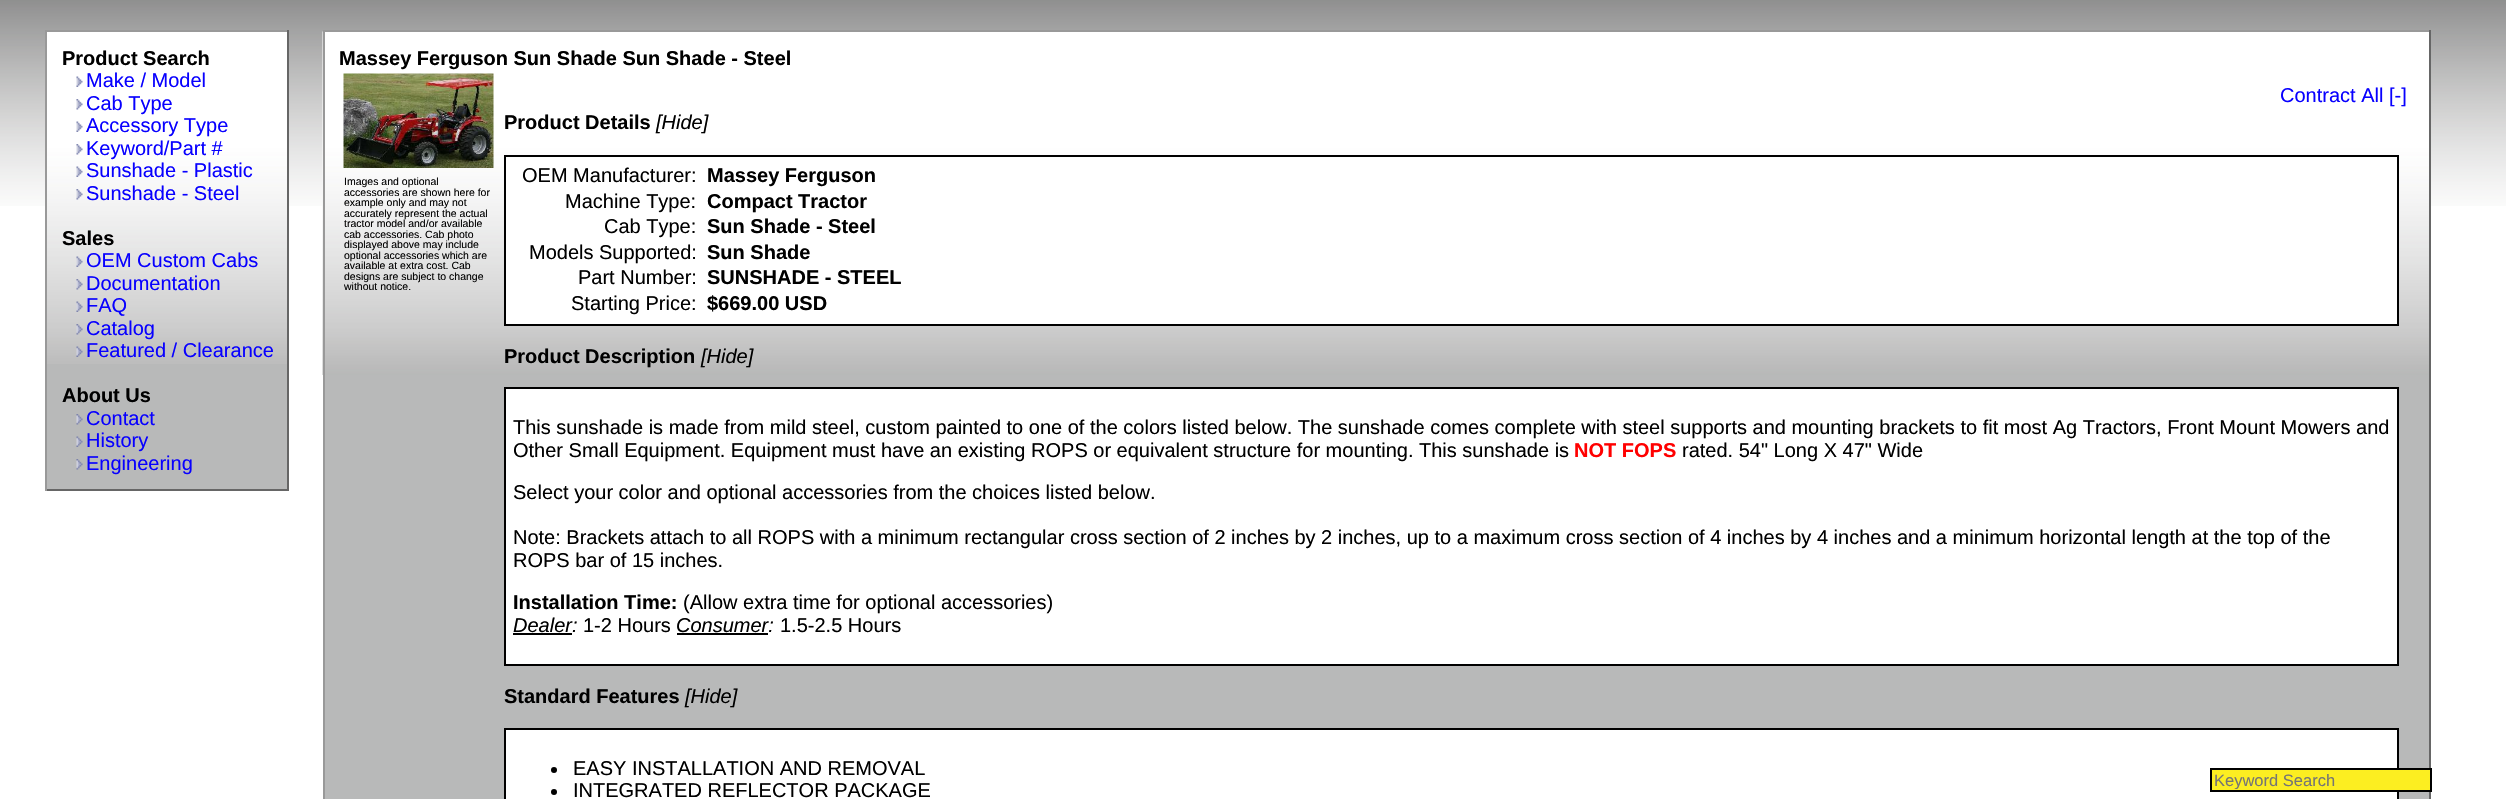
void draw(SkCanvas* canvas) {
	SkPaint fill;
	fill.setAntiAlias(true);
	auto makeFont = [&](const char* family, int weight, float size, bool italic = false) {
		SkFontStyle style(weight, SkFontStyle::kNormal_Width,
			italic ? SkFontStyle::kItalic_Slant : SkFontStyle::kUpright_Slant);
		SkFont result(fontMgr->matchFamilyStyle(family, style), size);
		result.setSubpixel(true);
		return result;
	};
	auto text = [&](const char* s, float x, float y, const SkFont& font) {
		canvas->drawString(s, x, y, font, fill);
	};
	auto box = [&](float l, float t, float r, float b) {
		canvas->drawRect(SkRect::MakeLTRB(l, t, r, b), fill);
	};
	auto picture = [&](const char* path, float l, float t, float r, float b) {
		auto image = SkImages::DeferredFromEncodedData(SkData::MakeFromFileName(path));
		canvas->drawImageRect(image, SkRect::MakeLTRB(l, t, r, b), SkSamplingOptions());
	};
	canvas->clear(0xFFFFFFFF);
	picture("image0.png", 0, 0, 2506, 206);
	fill.setColor(0xFFB8B9B9);
	box(47, 364, 287, 489);
	picture("image1.png", 47, 32, 287, 364);
	fill.setColor(0xFF999999);
	box(45, 30, 288, 32);
	fill.setColor(0xFF666666);
	box(287, 30, 289, 491);
	box(45, 489, 288, 491);
	fill.setColor(0xFF999999);
	box(45, 30, 47, 491);
	picture("image2.png", 76, 76, 83, 87);
	picture("image3.png", 76, 99, 83, 110);
	picture("image2.png", 76, 121, 83, 132);
	picture("image4.png", 76, 144, 83, 155);
	picture("image5.png", 76, 166, 83, 177);
	picture("image6.png", 76, 189, 83, 200);
	picture("image7.png", 76, 256, 83, 267);
	picture("image8.png", 76, 279, 83, 290);
	picture("image9.png", 76, 301, 83, 312);
	picture("image10.png", 76, 324, 83, 335);
	picture("image11.png", 76, 346, 83, 357);
	picture("image12.png", 76, 414, 83, 425);
	picture("image13.png", 76, 436, 83, 447);
	picture("image12.png", 76, 459, 83, 470);
	fill.setColor(0xFFB8B9B9);
	box(325, 375, 2429, 799);
	picture("image14.png", 322, 31, 2429, 375);
	fill.setColor(0xFF999999);
	box(323, 30, 2430, 32);
	fill.setColor(0xFF666666);
	box(2429, 30, 2431, 799);
	fill.setColor(0xFF999999);
	box(323, 30, 325, 799);
	picture("image15.png", 343, 73, 494, 168);
	fill.setColor(0xFFFFFFFF);
	box(506, 158, 2397, 324);
	fill.setStyle(SkPaint::kStroke_Style);
	fill.setStrokeWidth(2);
	fill.setColor(0xFF000000);
	canvas->drawRect(SkRect::MakeLTRB(505, 156, 2398, 325), fill);
	fill.setStyle(SkPaint::kFill_Style);
	fill.setColor(0xFFFFFFFF);
	canvas->drawRect(SkRect::MakeLTRB(505, 388, 2398, 665), fill);
	fill.setStyle(SkPaint::kStroke_Style);
	fill.setColor(0xFF000000);
	canvas->drawRect(SkRect::MakeLTRB(505, 388, 2398, 665), fill);
	fill.setStyle(SkPaint::kFill_Style);
	box(513, 633, 572, 635);
	box(677, 633, 768, 635);
	fill.setColor(0xFFFFFFFF);
	canvas->drawRect(SkRect::MakeLTRB(505, 729, 2398, 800), fill);
	fill.setStyle(SkPaint::kStroke_Style);
	fill.setColor(0xFF000000);
	canvas->drawRect(SkRect::MakeLTRB(505, 729, 2398, 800), fill);
	fill.setStyle(SkPaint::kFill_Style);
	canvas->drawCircle(554, 770, 3, fill);
	canvas->drawCircle(554, 792, 3, fill);
	fill.setColor(0xFFFCEE21);
	canvas->drawRect(SkRect::MakeLTRB(2211, 769, 2431, 791), fill);
	fill.setStyle(SkPaint::kStroke_Style);
	fill.setColor(0xFF000000);
	canvas->drawRect(SkRect::MakeLTRB(2211, 769, 2431, 791), fill);
	auto font1 = makeFont("Liberation Sans", 700, 20);
	fill.setStyle(SkPaint::kFill_Style);
	text("Product Search", 62, 65, font1);
	auto font2 = makeFont("Liberation Sans", 400, 20);
	fill.setColor(0xFF0800FF);
	text("Make / Model", 86, 87, font2);
	text("Cab Type", 86, 110, font2);
	text("Accessory Type", 86, 132, font2);
	text("Keyword/Part #", 86, 155, font2);
	text("Sunshade - Plastic", 86, 177, font2);
	text("Sunshade - Steel", 86, 200, font2);
	fill.setColor(0xFF000000);
	text("Sales", 62, 245, font1);
	fill.setColor(0xFF0800FF);
	text("OEM Custom Cabs", 86, 267, font2);
	text("Documentation", 86, 290, font2);
	text("FAQ", 86, 312, font2);
	text("Catalog", 86, 335, font2);
	text("Featured / Clearance", 86, 357, font2);
	fill.setColor(0xFF000000);
	text("About Us", 62, 402, font1);
	fill.setColor(0xFF0800FF);
	text("Contact", 86, 425, font2);
	text("History", 86, 447, font2);
	text("Engineering", 86, 470, font2);
	fill.setColor(0xFF000000);
	text("Massey Ferguson Sun Shade Sun Shade - Steel", 339, 65, font1);
	fill.setColor(0xFF0800FF);
	text("Contract All [-]", 2280, 102, font2);
	auto font3 = makeFont("Liberation Sans", 400, 10.5f);
	fill.setColor(0xFF000000);
	text("Images and optional", 344, 185, font3);
	text("accessories are shown here for", 344, 196, font3);
	text("example only and may not", 344, 206, font3);
	text("accurately represent the actual", 344, 217, font3);
	text("tractor model and/or available", 344, 227, font3);
	text("cab accessories. Cab photo", 344, 238, font3);
	text("displayed above may include", 344, 248, font3);
	text("optional accessories which are", 344, 259, font3);
	text("available at extra cost. Cab", 344, 269, font3);
	text("designs are subject to change", 344, 280, font3);
	text("without notice.", 344, 290, font3);
	text("Product Details", 504, 129, font1);
	auto font4 = makeFont("Liberation Sans", 400, 20, true);
	text("[Hide]", 656, 129, font4);
	text("OEM Manufacturer:", 522, 182, font2);
	text("Massey Ferguson", 707, 182, font1);
	text("Machine Type:", 565, 208, font2);
	text("Compact Tractor", 707, 208, font1);
	text("Cab Type:", 604, 233, font2);
	text("Sun Shade - Steel", 707, 233, font1);
	text("Models Supported:", 529, 259, font2);
	text("Sun Shade", 707, 259, font1);
	text("Part Number:", 578, 284, font2);
	text("SUNSHADE - STEEL", 707, 284, font1);
	text("Starting Price:", 571, 310, font2);
	text("$669.00 USD", 707, 310, font1);
	text("Product Description", 504, 363, font1);
	text("[Hide]", 701, 363, font4);
	text("This sunshade is made from mild steel, custom painted to one of the colors listed below. The sunshade comes complete with steel supports and mounting brackets to fit most Ag Tractors, Front Mount Mowers and", 513, 434, font2);
	text("Other Small Equipment. Equipment must have an existing ROPS or equivalent structure for mounting.", 513, 457, font2);
	text("This sunshade is", 1419, 457, font2);
	fill.setColor(0xFFFF0000);
	text("NOT FOPS", 1574, 457, font1);
	fill.setColor(0xFF000000);
	text("rated. 54\" Long X 47\" Wide", 1682, 457, font2);
	text("Select your color and optional accessories from the choices listed below.", 513, 499, font2);
	text("Note: Brackets attach to all ROPS with a minimum rectangular cross section of 2 inches by 2 inches, up to a maximum cross section of 4 inches by 4 inches and a minimum horizontal length at the top of the", 513, 544, font2);
	text("ROPS bar of 15 inches.", 513, 567, font2);
	text("Installation Time:", 513, 609, font1);
	text("(Allow extra time for optional accessories)", 683, 609, font2);
	text("Dealer:", 513, 632, font4);
	text("1-2 Hours", 583, 632, font2);
	text("Consumer:", 676, 632, font4);
	text("1.5-2.5 Hours", 780, 632, font2);
	text("Standard Features", 504, 703, font1);
	text("[Hide]", 685, 703, font4);
	text("EASY INSTALLATION AND REMOVAL", 573, 775, font2);
	text("INTEGRATED REFLECTOR PACKAGE", 573, 797, font2);
	canvas->save();
	canvas->clipRect(SkRect::MakeLTRB(2214, 771, 2427, 789));
	auto font5 = makeFont("Liberation Sans", 400, 16.5f);
	fill.setColor(0xFF757575);
	text("Keyword Search", 2214, 786, font5);
	canvas->restore();
}
